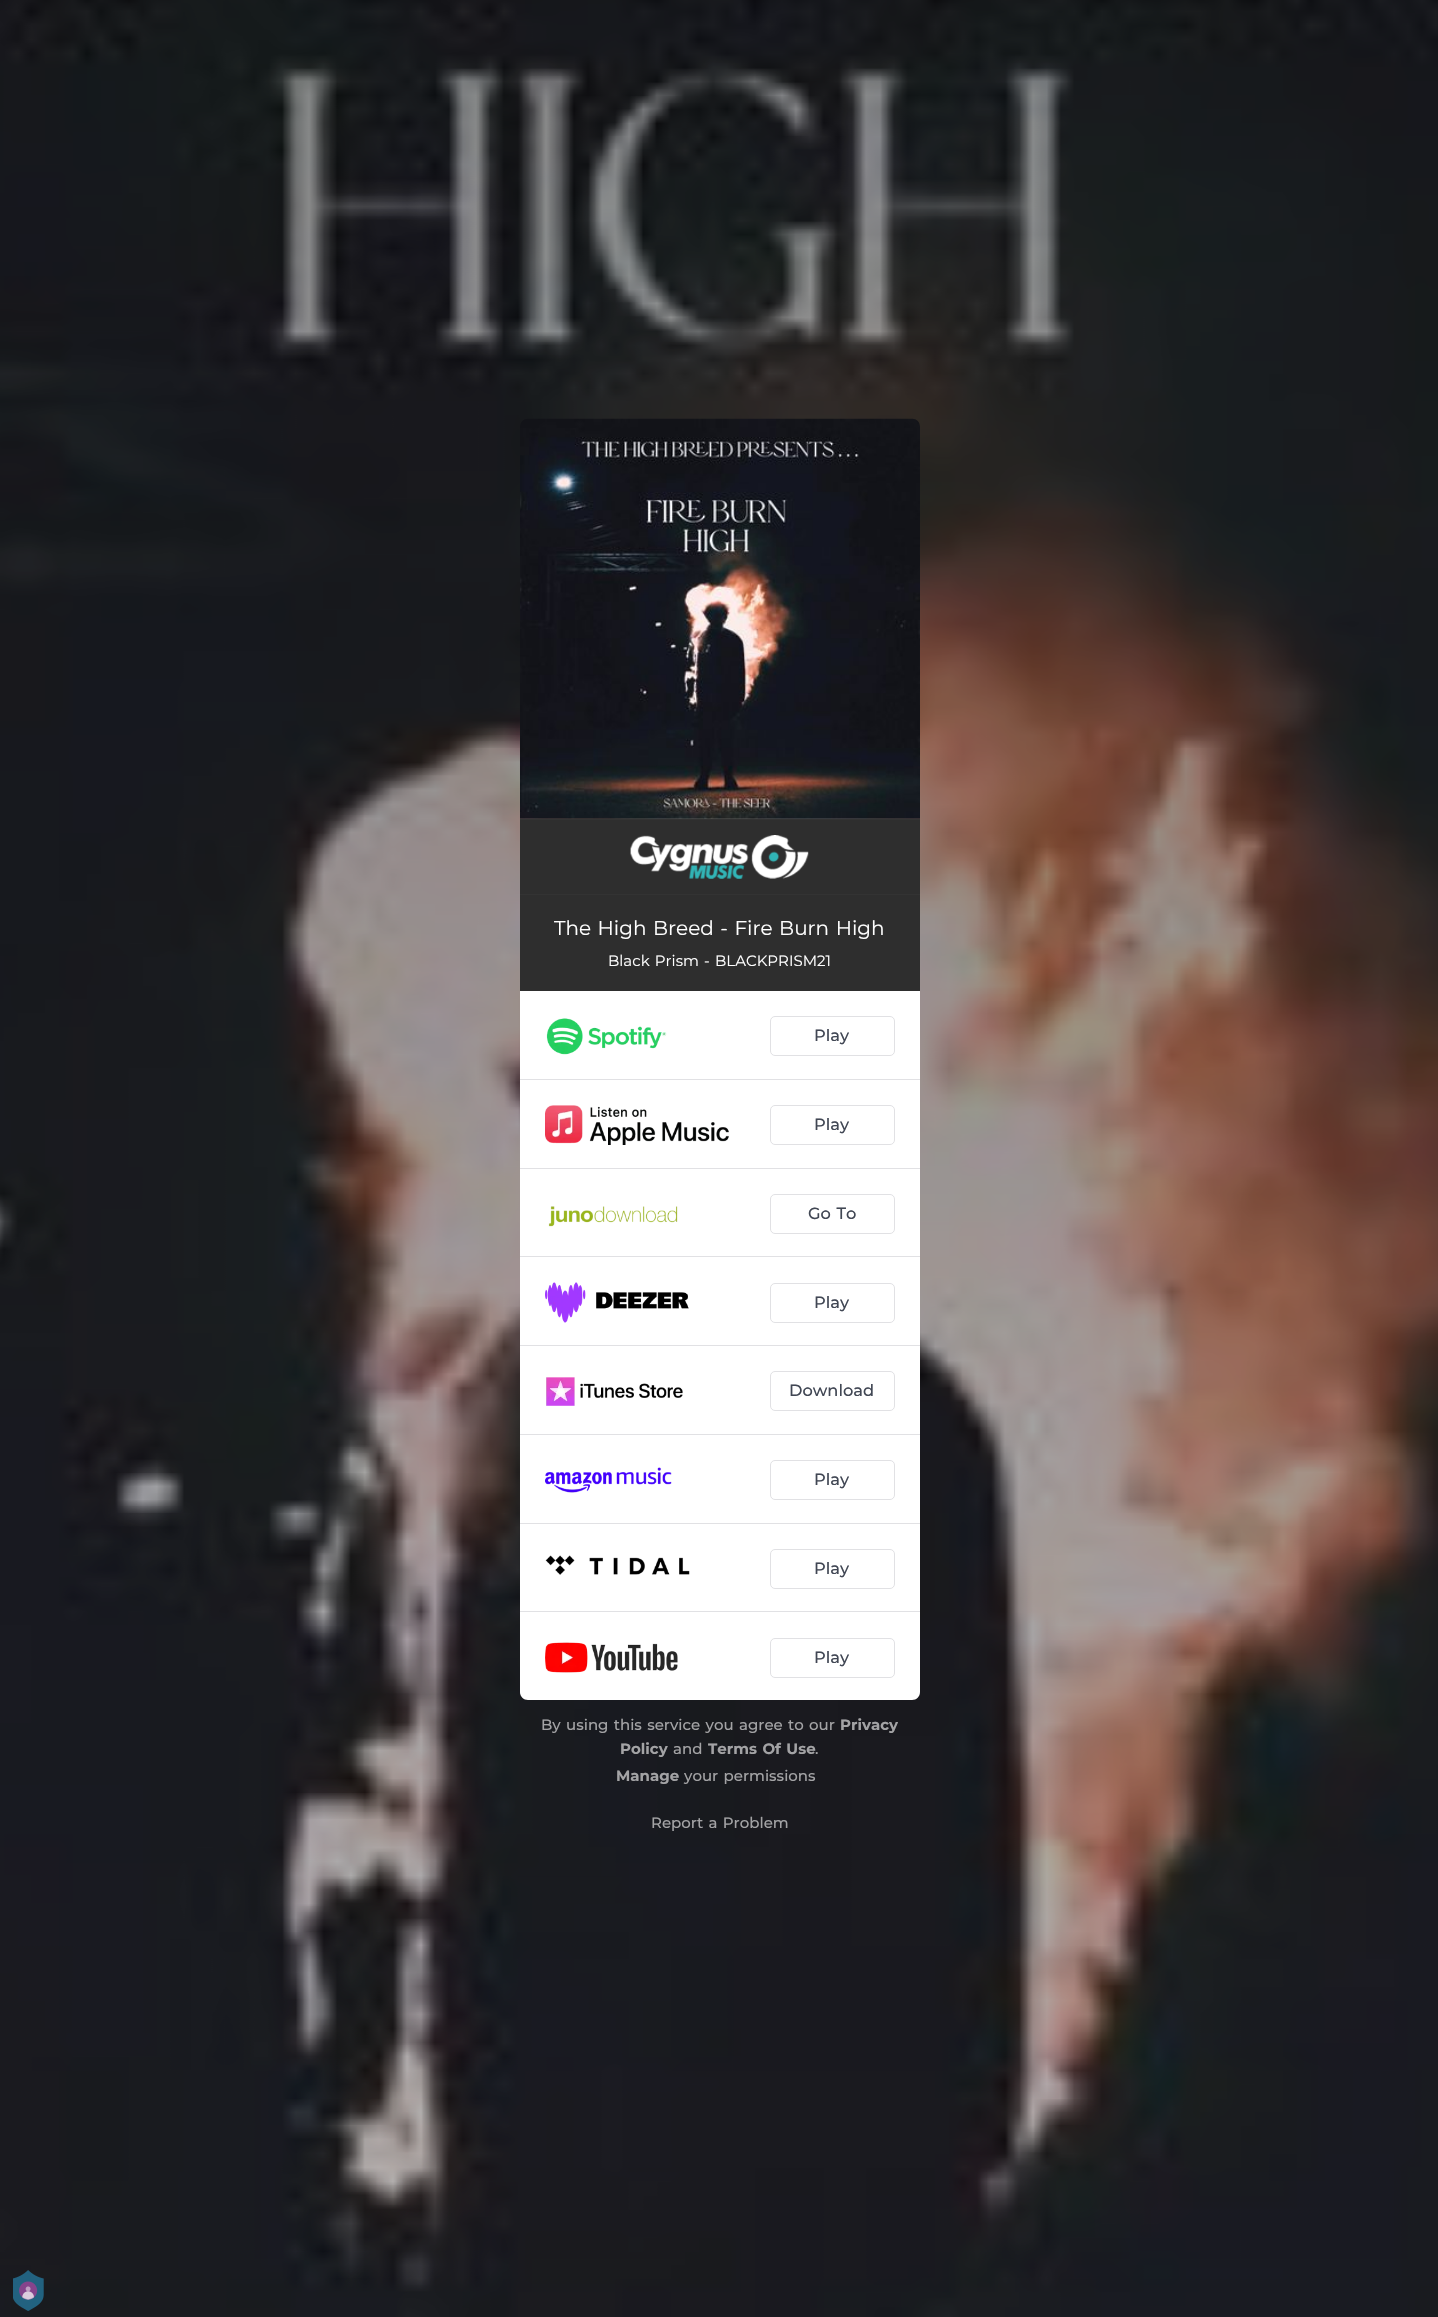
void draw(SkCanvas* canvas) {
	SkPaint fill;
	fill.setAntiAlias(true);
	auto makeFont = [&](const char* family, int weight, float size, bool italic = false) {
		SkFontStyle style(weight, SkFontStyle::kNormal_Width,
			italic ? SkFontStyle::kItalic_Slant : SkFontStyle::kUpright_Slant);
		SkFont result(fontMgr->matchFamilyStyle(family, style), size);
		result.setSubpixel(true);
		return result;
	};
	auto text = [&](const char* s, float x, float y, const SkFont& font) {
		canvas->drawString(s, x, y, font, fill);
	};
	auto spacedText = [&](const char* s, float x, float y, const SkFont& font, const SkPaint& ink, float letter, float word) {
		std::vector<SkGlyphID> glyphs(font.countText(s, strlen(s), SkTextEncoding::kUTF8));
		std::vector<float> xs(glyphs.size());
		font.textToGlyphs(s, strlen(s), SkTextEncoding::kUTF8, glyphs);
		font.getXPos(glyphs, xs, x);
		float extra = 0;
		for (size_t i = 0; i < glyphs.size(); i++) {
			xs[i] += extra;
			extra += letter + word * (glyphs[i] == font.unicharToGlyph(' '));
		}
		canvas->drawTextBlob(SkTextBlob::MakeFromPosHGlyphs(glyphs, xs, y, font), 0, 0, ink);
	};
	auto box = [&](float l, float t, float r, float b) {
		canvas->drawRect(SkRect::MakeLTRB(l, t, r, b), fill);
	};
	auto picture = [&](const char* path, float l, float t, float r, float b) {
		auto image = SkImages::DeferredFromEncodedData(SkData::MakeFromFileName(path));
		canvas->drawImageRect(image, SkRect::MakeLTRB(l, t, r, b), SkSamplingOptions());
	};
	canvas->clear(0xFFFFFFFF);
	picture("image0.png", 0, 0, 1438, 2317);
	picture("image1.png", 520, 418, 920, 819);
	fill.setColor(0xFF2E2E2E);
	box(520, 820, 920, 894);
	fill.setColor(0xFF333333);
	box(520, 819, 920, 820);
	box(520, 894, 920, 895);
	picture("image2.png", 630, 835, 809, 879);
	fill.setColor(0xFF2E2E2E);
	box(520, 895, 920, 991);
	fill.setColor(0xFFFFFFFF);
	canvas->drawPath(SkPathBuilder().moveTo(520, 991).lineTo(920, 991).lineTo(920, 1692).cubicTo(920, 1696.5f, 916.5f, 1700, 912, 1700).lineTo(528, 1700).cubicTo(523.5f, 1700, 520, 1696.5f, 520, 1692).close().detach(), fill);
	fill.setColor(0xFFE1E1E4);
	box(520, 1079, 920, 1080);
	picture("image3.png", 546, 1018, 667, 1055);
	fill.setStyle(SkPaint::kStroke_Style);
	fill.setStrokeWidth(1);
	canvas->drawRoundRect(SkRect::MakeLTRB(770.5f, 1016.5f, 894.5f, 1055.5f), 4.5f, 4.5f, fill);
	fill.setStyle(SkPaint::kFill_Style);
	box(520, 1168, 920, 1169);
	picture("image4.png", 545, 1105, 729, 1145);
	fill.setStyle(SkPaint::kStroke_Style);
	canvas->drawRoundRect(SkRect::MakeLTRB(770.5f, 1105.5f, 894.5f, 1144.5f), 4.5f, 4.5f, fill);
	fill.setStyle(SkPaint::kFill_Style);
	box(520, 1256, 920, 1257);
	picture("image5.png", 548, 1206, 678, 1227);
	fill.setStyle(SkPaint::kStroke_Style);
	canvas->drawRoundRect(SkRect::MakeLTRB(770.5f, 1194.5f, 894.5f, 1233.5f), 4.5f, 4.5f, fill);
	fill.setStyle(SkPaint::kFill_Style);
	box(520, 1345, 920, 1346);
	picture("image6.png", 545, 1282, 689, 1323);
	fill.setStyle(SkPaint::kStroke_Style);
	canvas->drawRoundRect(SkRect::MakeLTRB(770.5f, 1283.5f, 894.5f, 1322.5f), 4.5f, 4.5f, fill);
	fill.setStyle(SkPaint::kFill_Style);
	box(520, 1434, 920, 1435);
	picture("image7.png", 546, 1377, 683, 1406);
	fill.setStyle(SkPaint::kStroke_Style);
	canvas->drawRoundRect(SkRect::MakeLTRB(770.5f, 1371.5f, 894.5f, 1410.5f), 4.5f, 4.5f, fill);
	fill.setStyle(SkPaint::kFill_Style);
	box(520, 1523, 920, 1524);
	picture("image8.png", 545, 1467, 672, 1493);
	fill.setStyle(SkPaint::kStroke_Style);
	canvas->drawRoundRect(SkRect::MakeLTRB(770.5f, 1460.5f, 894.5f, 1499.5f), 4.5f, 4.5f, fill);
	fill.setStyle(SkPaint::kFill_Style);
	box(520, 1611, 920, 1612);
	picture("image9.png", 545, 1555, 690, 1575);
	fill.setStyle(SkPaint::kStroke_Style);
	canvas->drawRoundRect(SkRect::MakeLTRB(770.5f, 1549.5f, 894.5f, 1588.5f), 4.5f, 4.5f, fill);
	picture("image10.png", 545, 1642, 678, 1673);
	canvas->drawRoundRect(SkRect::MakeLTRB(770.5f, 1638.5f, 894.5f, 1677.5f), 4.5f, 4.5f, fill);
	picture("image11.png", 13, 2270, 44, 2311);
	auto font1 = makeFont("Montserrat", 400, 20);
	fill.setStyle(SkPaint::kFill_Style);
	fill.setColor(0xFFFFFFFF);
	spacedText("The High Breed - Fire Burn High", 554, 935, font1, fill, 0, 1.25f);
	auto font2 = makeFont("Montserrat", 400, 15);
	spacedText("Black Prism - BLACKPRISM21", 608, 966, font2, fill, 0, 1.25f);
	auto font3 = makeFont("Montserrat", 500, 16.25f);
	fill.setColor(0xFF414754);
	text("Play", 814, 1041, font3);
	text("Play", 814, 1130, font3);
	spacedText("Go To", 808, 1219, font3, fill, 0, 1.25f);
	text("Play", 814, 1308, font3);
	text("Download", 789, 1396, font3);
	text("Play", 814, 1485, font3);
	text("Play", 814, 1574, font3);
	text("Play", 814, 1663, font3);
	auto font4 = makeFont("Montserrat", 500, 15);
	fill.setColor(0xFFA3A3A5);
	spacedText("By using this service you agree to our", 541, 1730, font4, fill, 0, 1.25f);
	auto font5 = makeFont("Montserrat", 700, 15);
	text("Privacy", 840, 1730, font5);
	text("Policy", 620, 1754, font5);
	text("and", 673, 1754, font4);
	spacedText("Terms Of Use", 708, 1754, font5, fill, 0, 1.25f);
	text(".", 815, 1754, font4);
	text("Manage", 616, 1781, font5);
	spacedText("your permissions", 684, 1781, font4, fill, 0, 1.25f);
	spacedText("Report a Problem", 651, 1828, font4, fill, 0, 1.25f);
}
